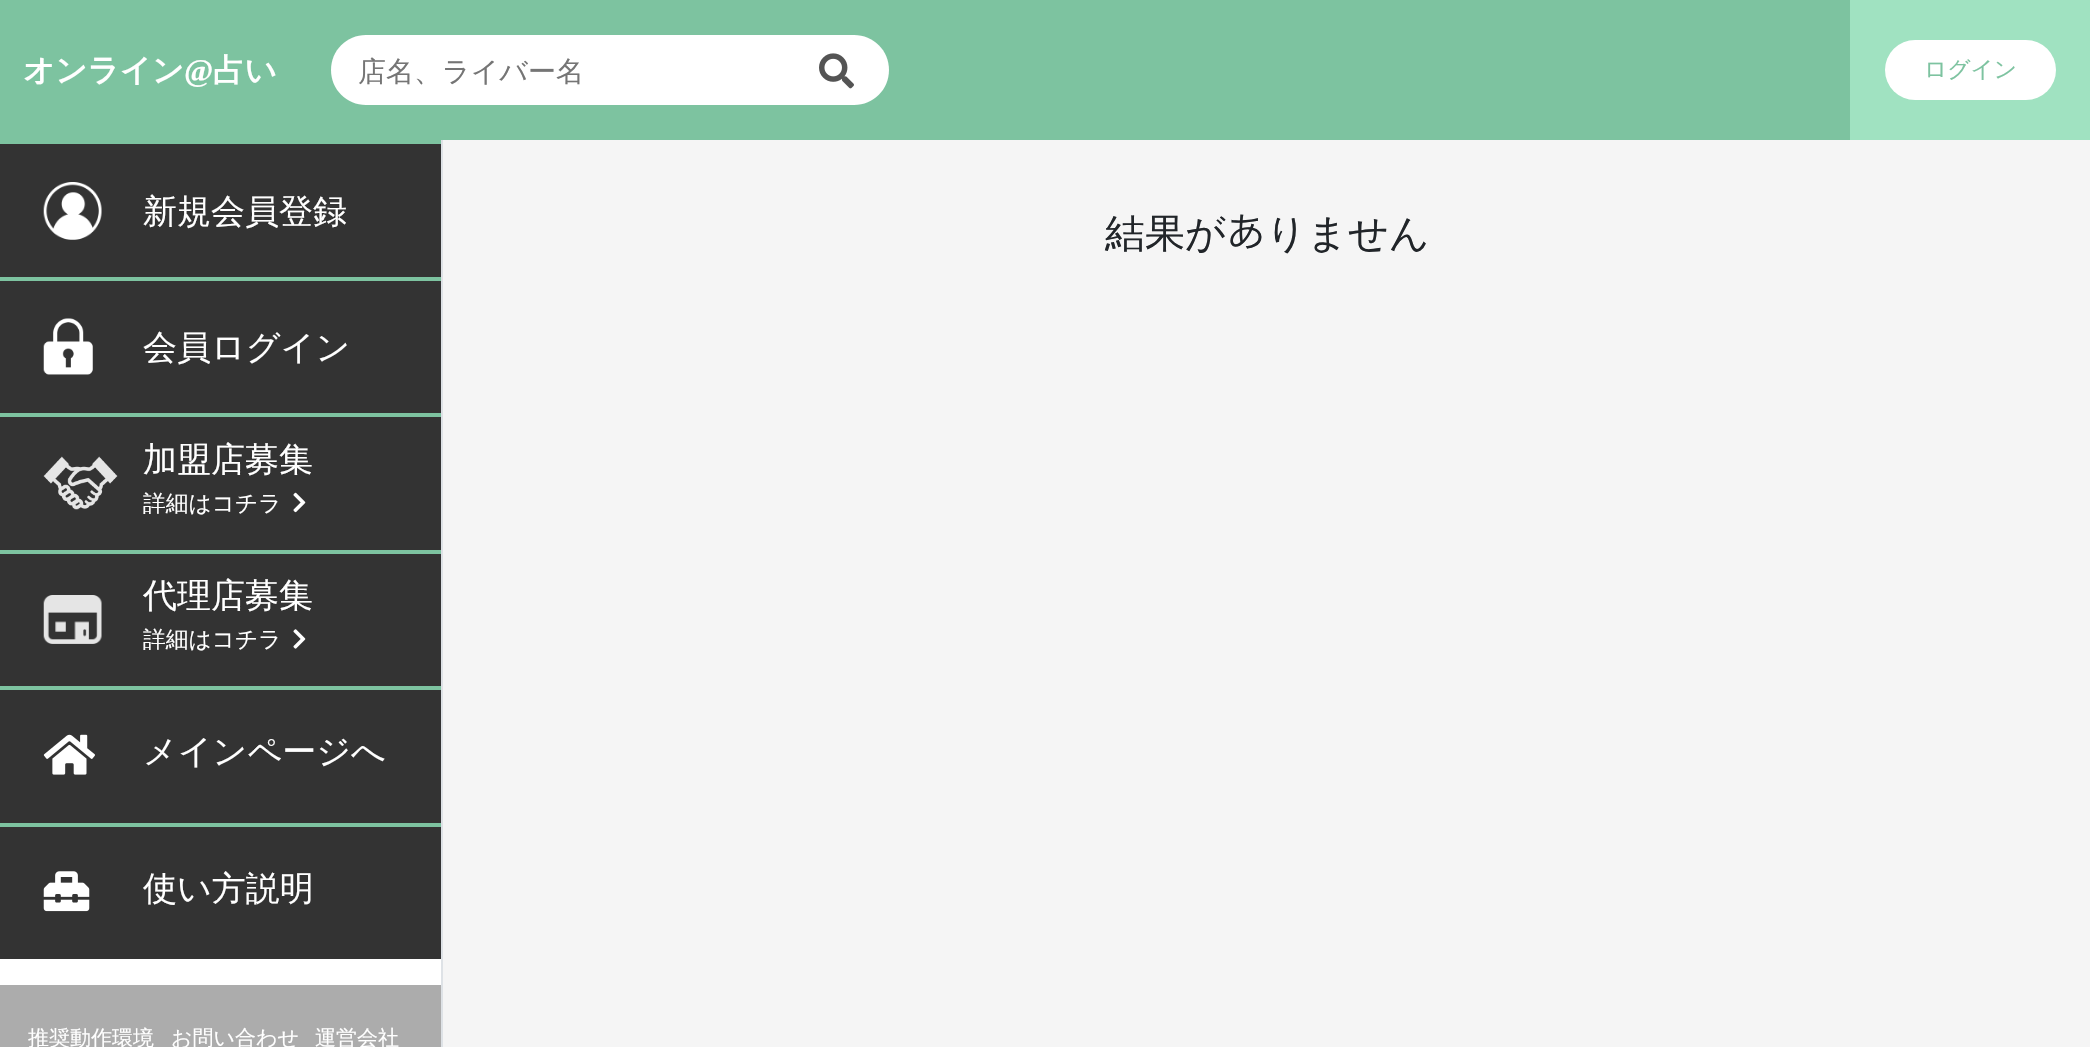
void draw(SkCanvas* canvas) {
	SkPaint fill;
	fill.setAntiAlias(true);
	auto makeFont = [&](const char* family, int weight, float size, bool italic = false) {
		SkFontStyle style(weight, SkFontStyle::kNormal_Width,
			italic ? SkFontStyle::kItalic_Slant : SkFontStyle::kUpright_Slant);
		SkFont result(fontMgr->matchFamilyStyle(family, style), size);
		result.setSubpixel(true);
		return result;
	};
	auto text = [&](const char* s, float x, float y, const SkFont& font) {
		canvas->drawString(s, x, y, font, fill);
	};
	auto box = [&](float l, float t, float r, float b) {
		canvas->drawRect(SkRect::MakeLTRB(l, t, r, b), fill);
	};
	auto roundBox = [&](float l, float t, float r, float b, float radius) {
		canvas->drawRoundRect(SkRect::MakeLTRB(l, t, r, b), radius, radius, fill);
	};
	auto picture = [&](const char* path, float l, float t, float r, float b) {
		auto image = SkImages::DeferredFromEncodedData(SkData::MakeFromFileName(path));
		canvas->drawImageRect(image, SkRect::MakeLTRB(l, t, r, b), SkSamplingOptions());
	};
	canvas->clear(0xFFFFFFFF);
	fill.setColor(0xFF7DC3A0);
	box(0, 0, 1850, 140);
	fill.setColor(0xFFFFFFFF);
	canvas->drawPath(SkPathBuilder().moveTo(366, 35).lineTo(786, 35).lineTo(786, 105).lineTo(366, 105).cubicTo(346.5f, 105, 331, 89.5f, 331, 70).cubicTo(331, 50.5f, 346.5f, 35, 366, 35).close().detach(), fill);
	canvas->drawPath(SkPathBuilder().moveTo(784, 35).lineTo(854, 35).cubicTo(873.5f, 35, 889, 50.5f, 889, 70).cubicTo(889, 89.5f, 873.5f, 105, 854, 105).lineTo(784, 105).close().detach(), fill);
	picture("image0.png", 819, 53, 854, 89);
	fill.setColor(0xFFA0E2C1);
	box(1850, 0, 2090, 140);
	fill.setColor(0xFFFFFFFF);
	roundBox(1885, 40, 2056, 100, 30);
	fill.setColor(0xFFDEE2E6);
	box(441, 140, 443, 1047);
	fill.setColor(0xFF333333);
	box(0, 144, 441, 277);
	fill.setColor(0xFF7DC3A0);
	box(0, 140, 441, 144);
	picture("image1.png", 43, 182, 102, 240);
	fill.setColor(0xFF333333);
	box(0, 281, 441, 413);
	fill.setColor(0xFF7DC3A0);
	box(0, 277, 441, 281);
	picture("image2.png", 43, 318, 93, 375);
	fill.setColor(0xFF333333);
	box(0, 417, 441, 550);
	fill.setColor(0xFF7DC3A0);
	box(0, 413, 441, 417);
	picture("image3.png", 43, 456, 118, 510);
	picture("image4.png", 293, 492, 306, 513);
	fill.setColor(0xFF333333);
	box(0, 554, 441, 686);
	fill.setColor(0xFF7DC3A0);
	box(0, 550, 441, 554);
	picture("image5.png", 43, 595, 102, 644);
	picture("image6.png", 293, 629, 306, 649);
	fill.setColor(0xFF333333);
	box(0, 690, 441, 823);
	fill.setColor(0xFF7DC3A0);
	box(0, 686, 441, 690);
	picture("image7.png", 43, 734, 95, 775);
	fill.setColor(0xFF333333);
	box(0, 827, 441, 959);
	fill.setColor(0xFF7DC3A0);
	box(0, 823, 441, 827);
	picture("image8.png", 43, 871, 90, 912);
	fill.setColor(0xFFACACAC);
	box(0, 985, 441, 1047);
	fill.setColor(0xFFF5F5F5);
	box(443, 140, 2090, 1047);
	auto font1 = makeFont("WenQuanYi Zen Hei", 700, 31.5f);
	fill.setColor(0xFFFFFFFF);
	text("オンライン", 23, 81, font1);
	auto font2 = makeFont("Liberation Serif", 700, 31.5f);
	text("@", 184, 81, font2);
	text("占い", 213, 81, font1);
	auto font3 = makeFont("WenQuanYi Zen Hei", 500, 28);
	fill.setColor(0xFF757575);
	text("店名、ライバー名", 358, 81, font3);
	auto font4 = makeFont("WenQuanYi Zen Hei", 500, 22.75f);
	fill.setColor(0xFF7DC3A0);
	text("ログイン", 1924, 77, font4);
	auto font5 = makeFont("WenQuanYi Zen Hei", 500, 34);
	fill.setColor(0xFFFFFFFF);
	text("新規会員登録", 143, 223, font5);
	text("会員ログイン", 143, 359, font5);
	text("加盟店募集", 143, 471, font5);
	text("詳細はコチラ", 143, 511, font4);
	text("代理店募集", 143, 607, font5);
	text("詳細はコチラ", 143, 647, font4);
	text("メインページへ", 143, 763, font5);
	text("使い方説明", 143, 900, font5);
	auto font6 = makeFont("WenQuanYi Zen Hei", 500, 21);
	text("推奨動作環境", 28, 1045, font6);
	text("お問い合わせ", 171, 1045, font6);
	text("運営会社", 315, 1045, font6);
	auto font7 = makeFont("WenQuanYi Zen Hei", 500, 40);
	fill.setColor(0xFF212529);
	text("結果が", 1105, 247, font7);
	auto font8 = makeFont("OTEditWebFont", 300, 40);
	text("あ", 1226, 247, font8);
	text("りません", 1266, 247, font7);
}
